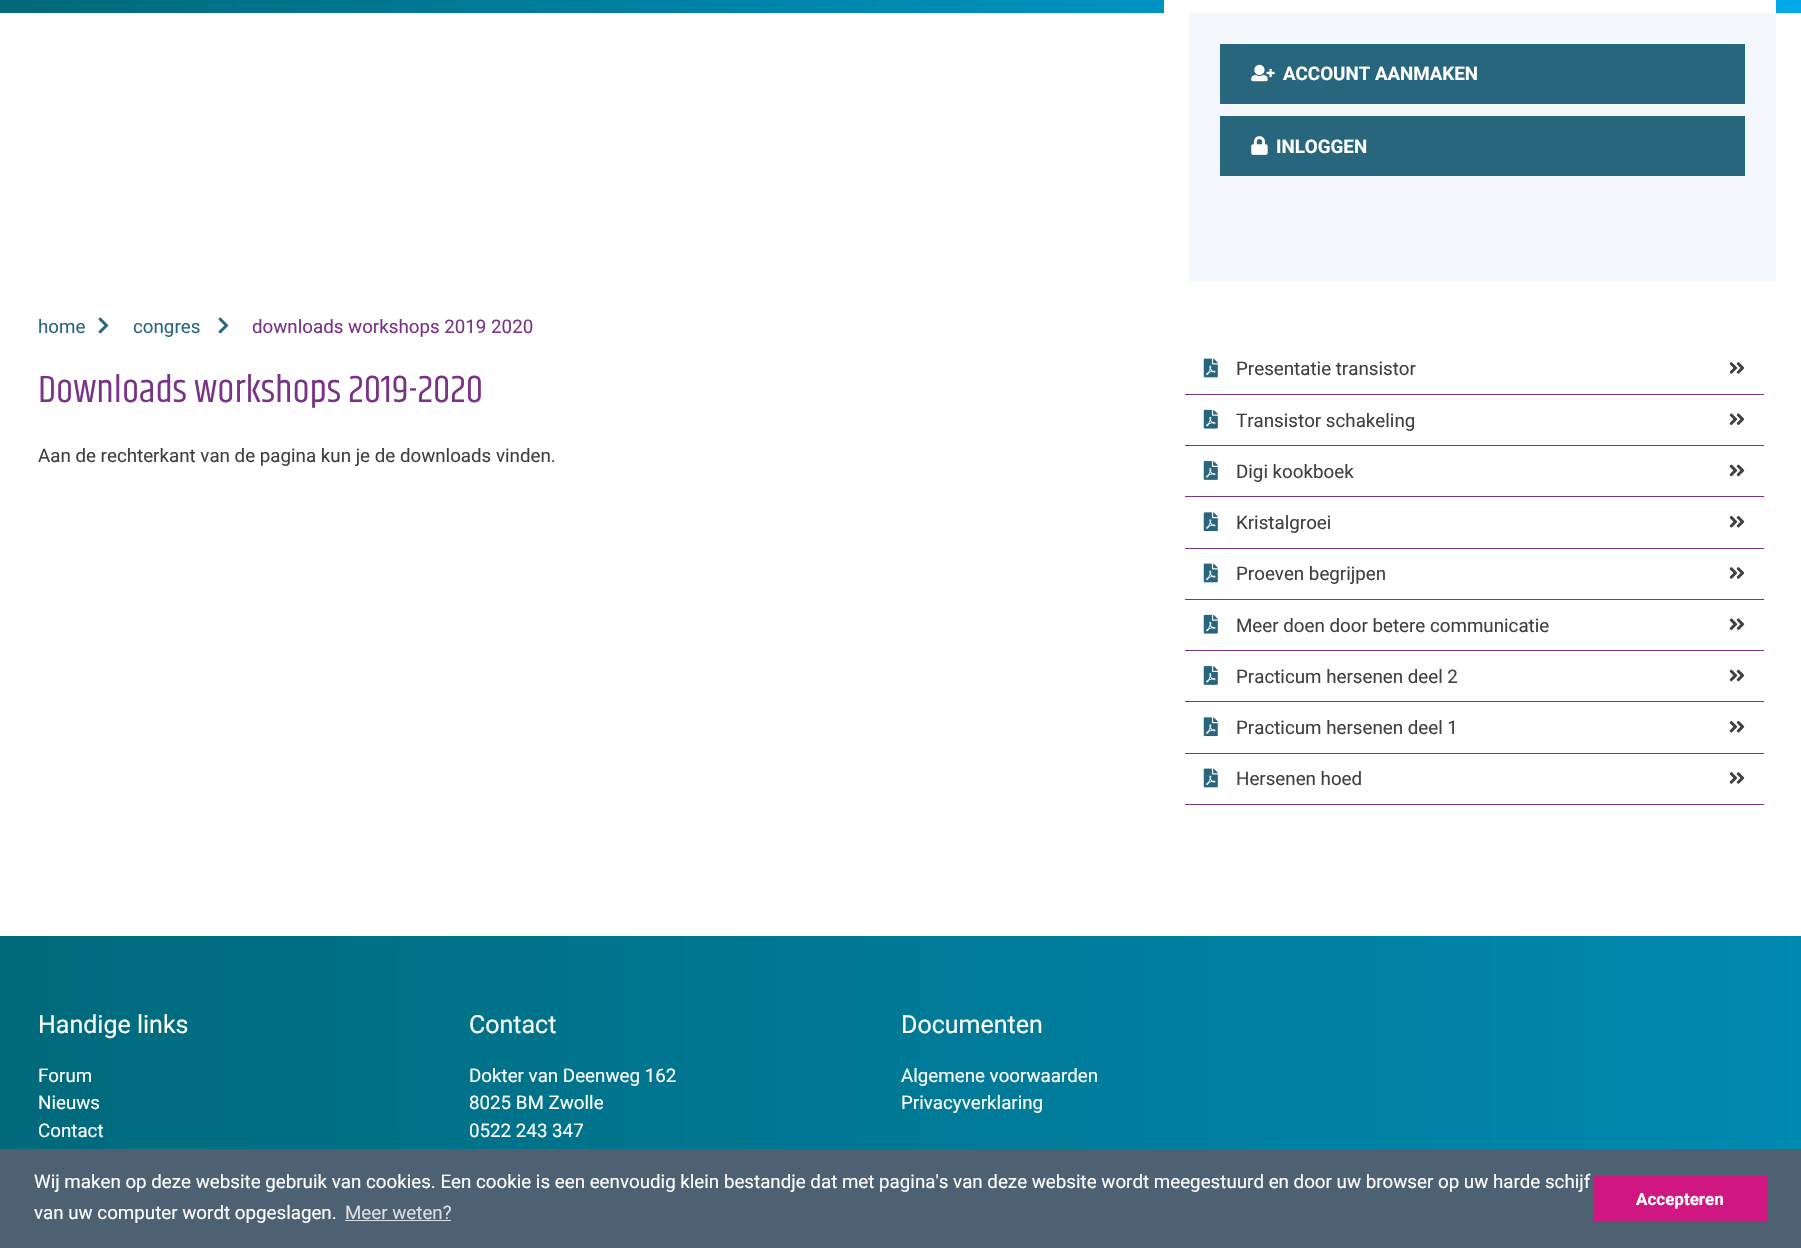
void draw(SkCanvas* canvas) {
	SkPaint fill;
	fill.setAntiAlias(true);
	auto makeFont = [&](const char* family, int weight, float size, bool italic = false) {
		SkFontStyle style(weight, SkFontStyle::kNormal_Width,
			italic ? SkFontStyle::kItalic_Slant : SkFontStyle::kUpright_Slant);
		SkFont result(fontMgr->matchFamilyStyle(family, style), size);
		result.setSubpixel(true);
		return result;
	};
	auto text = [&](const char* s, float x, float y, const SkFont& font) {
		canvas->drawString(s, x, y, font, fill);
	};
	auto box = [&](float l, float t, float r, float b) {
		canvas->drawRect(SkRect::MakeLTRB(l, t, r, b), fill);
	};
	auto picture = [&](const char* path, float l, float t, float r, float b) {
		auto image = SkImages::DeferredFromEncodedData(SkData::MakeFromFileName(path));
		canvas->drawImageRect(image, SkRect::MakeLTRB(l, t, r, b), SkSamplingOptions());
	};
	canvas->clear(0xFFFFFFFF);
	{
		const SkColor colors[] = {0xFF00697A, 0xFF00AAEA};
		const float stops[] = {0, 1};
		const SkPoint ends[] = {{0, -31}, {1801, -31}};
		fill.setShader(SkGradientShader::MakeLinear(ends, colors, stops, 2, SkTileMode::kClamp));
		fill.setAlpha(255);
	}
	box(0, 0, 1801, 13);
	fill.setShader(nullptr);
	fill.setColor(0xFFF3F6FA);
	box(1189, 13, 1776, 281);
	fill.setColor(0xFFFFFFFF);
	box(1164, 0, 1776, 13);
	fill.setColor(0xFF28667E);
	box(1220, 44, 1745, 104);
	picture("image0.png", 1251, 64, 1275, 82);
	box(1220, 116, 1745, 176);
	picture("image1.png", 1251, 136, 1268, 155);
	picture("image2.png", 98, 317, 109, 334);
	picture("image2.png", 218, 317, 229, 334);
	fill.setColor(0xFF7A3487);
	box(1185, 394, 1764, 395);
	picture("image3.png", 1203, 358, 1218, 378);
	picture("image4.png", 1729, 362, 1745, 374);
	box(1185, 445, 1764, 446);
	picture("image5.png", 1203, 409, 1218, 429);
	picture("image6.png", 1729, 413, 1745, 425);
	box(1185, 496, 1764, 497);
	picture("image7.png", 1203, 461, 1218, 480);
	picture("image8.png", 1729, 464, 1745, 477);
	box(1185, 548, 1764, 549);
	picture("image9.png", 1203, 512, 1218, 532);
	picture("image10.png", 1729, 515, 1745, 528);
	box(1185, 599, 1764, 600);
	picture("image3.png", 1203, 563, 1218, 583);
	picture("image4.png", 1729, 567, 1745, 579);
	box(1185, 650, 1764, 651);
	picture("image5.png", 1203, 614, 1218, 634);
	picture("image6.png", 1729, 618, 1745, 630);
	box(1185, 701, 1764, 702);
	picture("image7.png", 1203, 666, 1218, 685);
	picture("image8.png", 1729, 669, 1745, 682);
	box(1185, 753, 1764, 754);
	picture("image9.png", 1203, 717, 1218, 737);
	picture("image10.png", 1729, 720, 1745, 733);
	box(1185, 804, 1764, 805);
	picture("image3.png", 1203, 768, 1218, 788);
	picture("image4.png", 1729, 772, 1745, 784);
	{
		const SkColor colors[] = {0xFF00697A, 0xFF00AAEA};
		const float stops[] = {0, 1};
		const SkPoint ends[] = {{-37, 1105}, {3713, 1105}};
		fill.setShader(SkGradientShader::MakeLinear(ends, colors, stops, 2, SkTileMode::kClamp));
		fill.setAlpha(255);
	}
	box(0, 936, 1801, 1149);
	fill.setShader(nullptr);
	fill.setColor(0xFF4D6173);
	box(0, 1149, 1801, 1248);
	fill.setColor(0xFFDBDFE3);
	box(345, 1220, 451, 1221);
	fill.setColor(0xFFD01681);
	box(1593, 1176, 1768, 1221);
	auto font1 = makeFont("Roboto", 700, 18.75f);
	fill.setColor(0xFFFFFFFF);
	text("ACCOUNT AANMAKEN", 1283, 80, font1);
	text("INLOGGEN", 1276, 153, font1);
	auto font2 = makeFont("Roboto", 400, 18.75f);
	fill.setColor(0xFF28667E);
	text("home", 38, 333, font2);
	text("congres", 133, 333, font2);
	fill.setColor(0xFF7A3487);
	text("downloads workshops 2019 2020", 252, 333, font2);
	auto font3 = makeFont("Khand", 400, 38.75f);
	text("Downloads workshops 2019-2020", 38, 402, font3);
	fill.setColor(0xFF404040);
	text("Aan de rechterkant van de pagina kun je de downloads vinden.", 38, 462, font2);
	text("Presentatie transistor", 1236, 375, font2);
	text("Transistor schakeling", 1236, 427, font2);
	text("Digi kookboek", 1236, 478, font2);
	text("Kristalgroei", 1236, 529, font2);
	text("Proeven begrijpen", 1236, 580, font2);
	text("Meer doen door betere communicatie", 1236, 632, font2);
	text("Practicum hersenen deel 2", 1236, 683, font2);
	text("Practicum hersenen deel 1", 1236, 734, font2);
	text("Hersenen hoed", 1236, 785, font2);
	auto font4 = makeFont("Roboto", 400, 25);
	fill.setColor(0xFFFFFFFF);
	text("Handige links", 38, 1033, font4);
	text("Forum", 38, 1082, font2);
	text("Nieuws", 38, 1109, font2);
	text("Contact", 38, 1137, font2);
	text("Contact", 469, 1033, font4);
	text("Dokter van Deenweg 162", 469, 1082, font2);
	text("8025 BM Zwolle", 469, 1109, font2);
	text("0522 243 347", 469, 1137, font2);
	text("Documenten", 901, 1033, font4);
	text("Algemene voorwaarden", 901, 1082, font2);
	text("Privacyverklaring", 901, 1109, font2);
	text("Wij maken op deze website gebruik van cookies. Een cookie is een eenvoudig klein bestandje dat met pagina's van deze website wordt meegestuurd en door uw browser op uw harde schijf", 34, 1188, font2);
	text("van uw computer wordt opgeslagen.", 34, 1219, font2);
	fill.setColor(0xFFDBDFE3);
	text("Meer weten?", 345, 1219, font2);
	auto font5 = makeFont("Roboto", 700, 17);
	fill.setColor(0xFFFFFFFF);
	text("Accepteren", 1636, 1205, font5);
}
